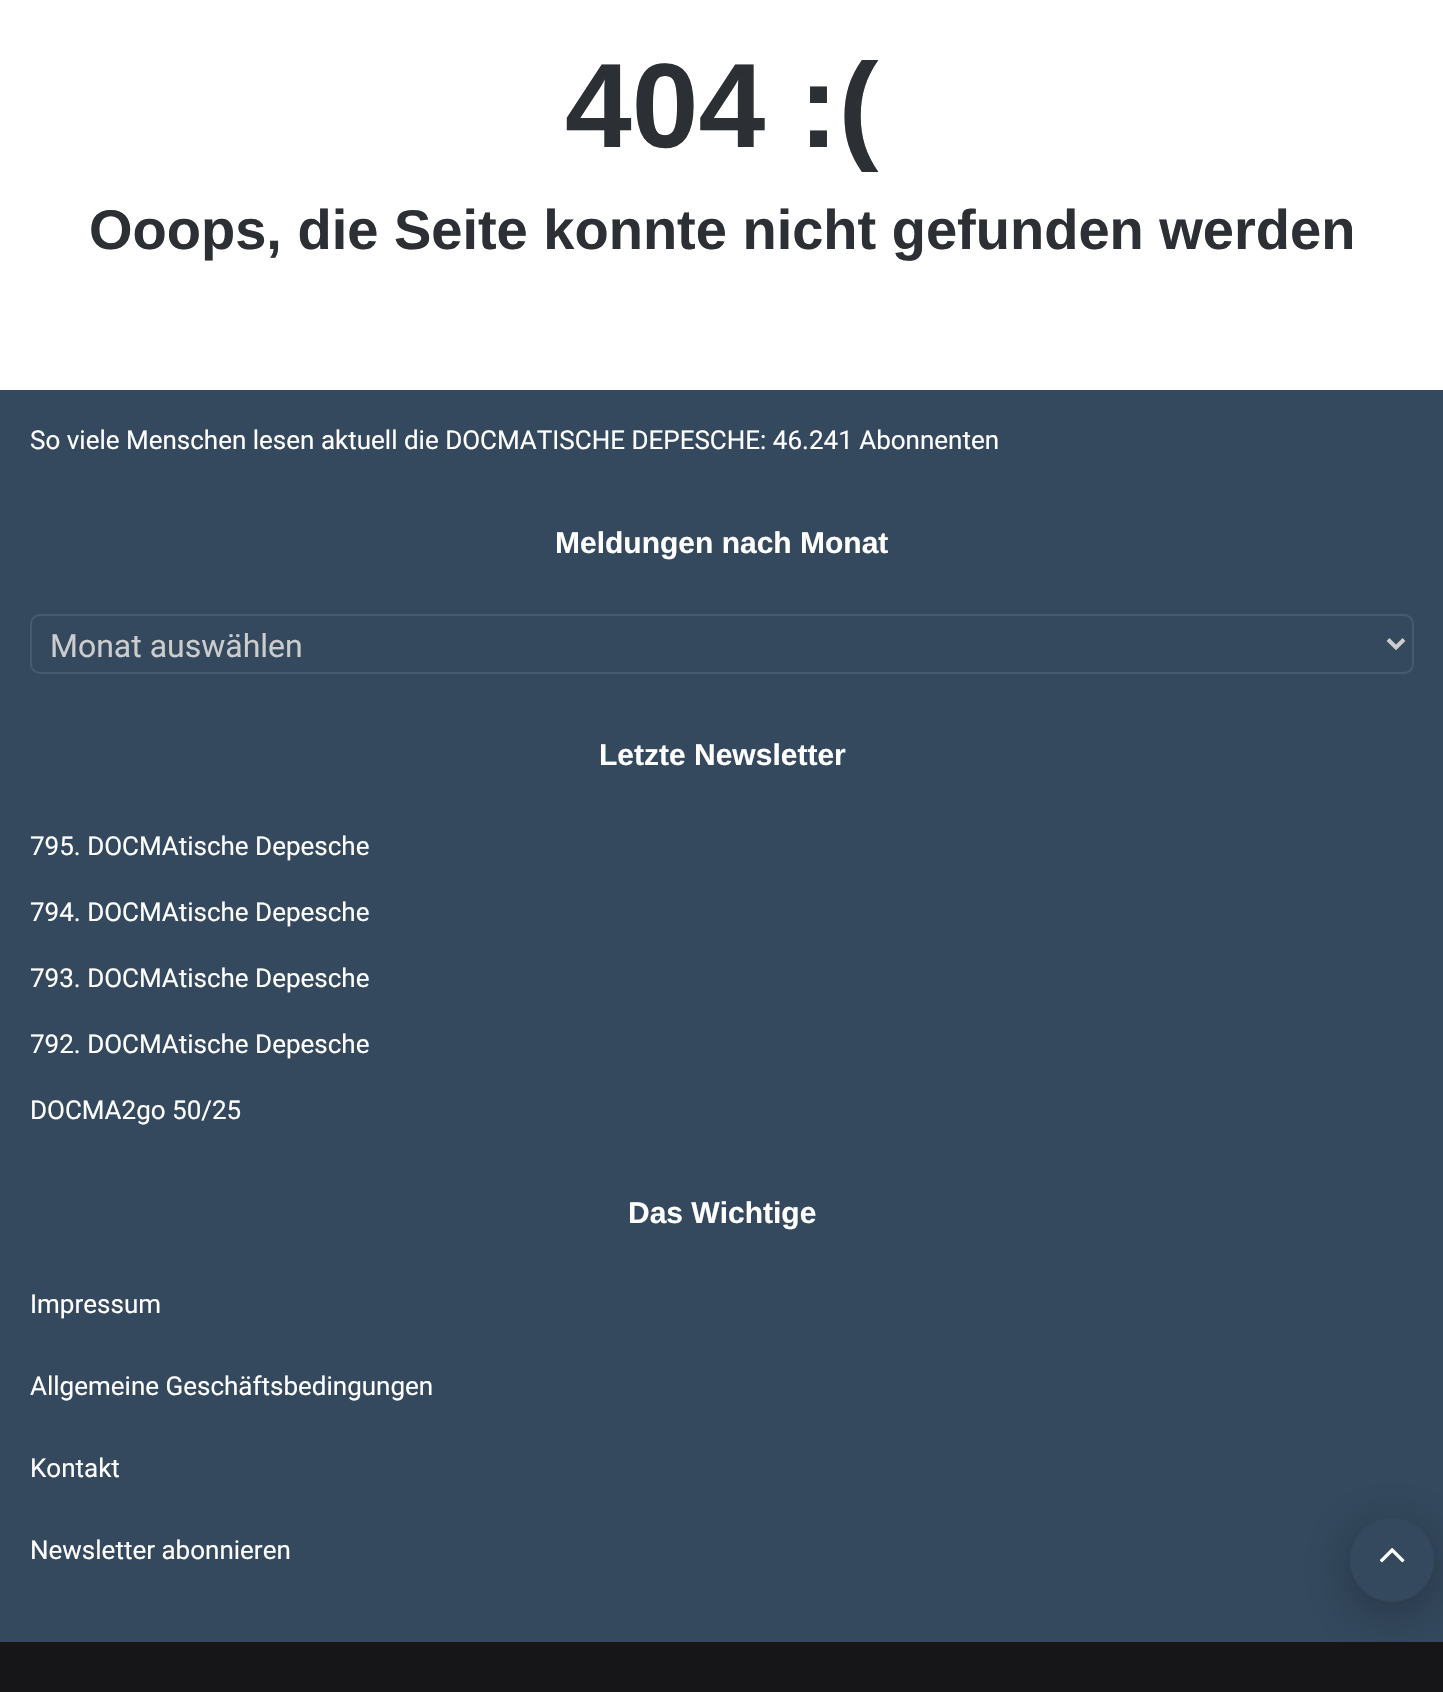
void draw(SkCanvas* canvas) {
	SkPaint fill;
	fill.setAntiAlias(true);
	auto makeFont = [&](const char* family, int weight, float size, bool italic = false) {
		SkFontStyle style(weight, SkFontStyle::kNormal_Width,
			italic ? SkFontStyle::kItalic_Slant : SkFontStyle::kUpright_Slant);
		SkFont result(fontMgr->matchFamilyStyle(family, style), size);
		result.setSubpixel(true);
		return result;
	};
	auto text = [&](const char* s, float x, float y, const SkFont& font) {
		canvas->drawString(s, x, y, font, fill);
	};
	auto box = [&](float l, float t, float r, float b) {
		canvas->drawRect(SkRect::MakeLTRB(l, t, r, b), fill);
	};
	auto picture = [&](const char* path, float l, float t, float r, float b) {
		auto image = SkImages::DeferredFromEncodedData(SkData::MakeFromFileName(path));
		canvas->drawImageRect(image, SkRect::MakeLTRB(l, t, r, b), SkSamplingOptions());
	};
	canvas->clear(0xFFFFFFFF);
	fill.setColor(0xFF34495E);
	box(0, 390, 1443, 1642);
	fill.setStyle(SkPaint::kStroke_Style);
	fill.setStrokeWidth(2);
	fill.setColor(0xFF485B6E);
	canvas->drawRoundRect(SkRect::MakeLTRB(31, 615, 1413, 673), 9, 9, fill);
	fill.setStrokeWidth(4);
	fill.setColor(0xFFCCCCCC);
	canvas->drawPath(SkPathBuilder().moveTo(1388, 639.5f).lineTo(1396, 647.5f).lineTo(1404, 639.5f).detach(), fill);
	fill.setStyle(SkPaint::kFill_Style);
	fill.setColor(0xFF161619);
	box(0, 1642, 1443, 1692);
	fill.setColor(0x4D000000);
	fill.setMaskFilter(SkMaskFilter::MakeBlur(kNormal_SkBlurStyle, 25));
	canvas->drawRoundRect(SkRect::MakeLTRB(1350, 1528, 1434, 1612), 42, 42, fill);
	fill.setMaskFilter(nullptr);
	fill.setColor(0xFF34495E);
	canvas->drawCircle(1392, 1560, 42, fill);
	picture("image0.png", 1379, 1548, 1405, 1563);
	auto font1 = makeFont("Liberation Sans", 700, 120);
	fill.setColor(0xFF2C2F34);
	text("404 :(", 565, 147, font1);
	auto font2 = makeFont("Liberation Sans", 700, 56);
	text("Ooops, die Seite konnte nicht gefunden werden", 89, 249, font2);
	auto font3 = makeFont("Roboto", 400, 26);
	fill.setColor(0xFFFFFFFF);
	text("So viele Menschen lesen aktuell die DOCMATISCHE DEPESCHE: 46.241 Abonnenten", 30, 449, font3);
	auto font4 = makeFont("Liberation Sans", 700, 30);
	text("Meldungen nach Monat", 555, 553, font4);
	auto font5 = makeFont("Roboto", 400, 32);
	fill.setColor(0xFFCCCCCC);
	text("Monat auswählen", 50, 657, font5);
	fill.setColor(0xFFFFFFFF);
	text("Letzte Newsletter", 599, 765, font4);
	text("795. DOCMAtische Depesche", 30, 855, font3);
	text("794. DOCMAtische Depesche", 30, 921, font3);
	text("793. DOCMAtische Depesche", 30, 987, font3);
	text("792. DOCMAtische Depesche", 30, 1053, font3);
	text("DOCMA2go 50/25", 30, 1119, font3);
	text("Das Wichtige", 628, 1223, font4);
	text("Impressum", 30, 1313, font3);
	text("Allgemeine Geschäftsbedingungen", 30, 1395, font3);
	text("Kontakt", 30, 1477, font3);
	text("Newsletter abonnieren", 30, 1559, font3);
}
